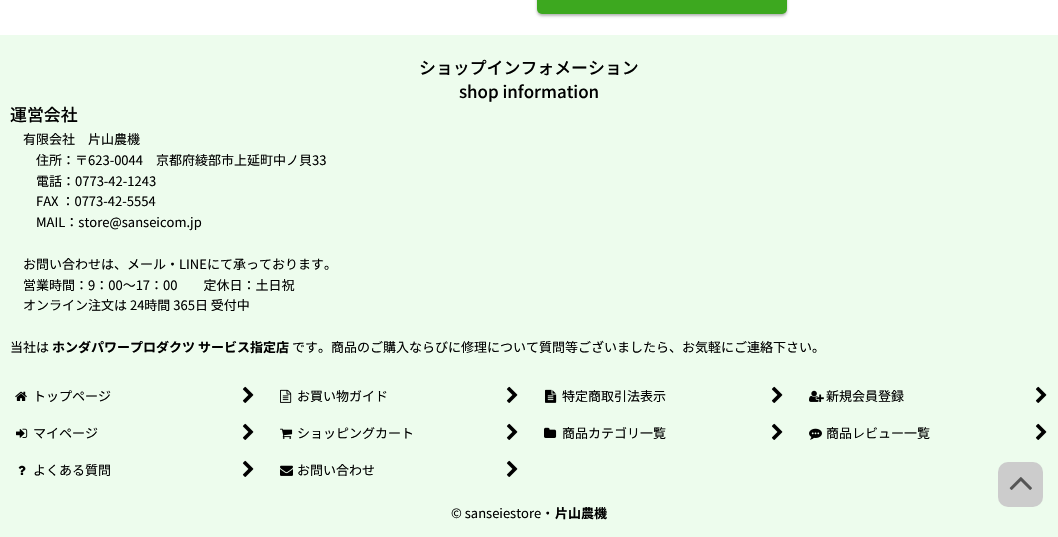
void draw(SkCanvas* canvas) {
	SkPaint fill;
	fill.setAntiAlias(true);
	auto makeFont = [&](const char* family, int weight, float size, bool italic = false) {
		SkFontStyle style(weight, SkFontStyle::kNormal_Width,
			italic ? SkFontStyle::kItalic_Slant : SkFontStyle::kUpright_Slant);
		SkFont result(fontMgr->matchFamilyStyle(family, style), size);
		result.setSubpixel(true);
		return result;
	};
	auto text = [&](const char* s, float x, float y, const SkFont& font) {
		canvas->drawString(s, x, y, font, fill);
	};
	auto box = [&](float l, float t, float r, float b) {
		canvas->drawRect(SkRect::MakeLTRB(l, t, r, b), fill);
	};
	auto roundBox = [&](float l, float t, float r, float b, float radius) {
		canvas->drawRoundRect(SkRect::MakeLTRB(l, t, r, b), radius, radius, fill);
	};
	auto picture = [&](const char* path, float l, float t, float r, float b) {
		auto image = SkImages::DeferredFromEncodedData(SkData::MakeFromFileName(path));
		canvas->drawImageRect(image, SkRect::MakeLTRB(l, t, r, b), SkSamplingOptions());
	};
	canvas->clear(0xFFFFFFFF);
	fill.setColor(0x26000000);
	fill.setMaskFilter(SkMaskFilter::MakeBlur(kNormal_SkBlurStyle, 1.5f));
	canvas->drawRoundRect(SkRect::MakeLTRB(539, -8, 785, 14), 3, 3, fill);
	fill.setMaskFilter(nullptr);
	fill.setColor(0x40000000);
	fill.setMaskFilter(SkMaskFilter::MakeBlur(kNormal_SkBlurStyle, 1.5f));
	canvas->drawRoundRect(SkRect::MakeLTRB(537, -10, 787, 16), 5, 5, fill);
	fill.setMaskFilter(nullptr);
	fill.setColor(0xFF3DA81F);
	roundBox(537, -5, 787, 14, 5);
	fill.setColor(0xFFEDFCED);
	box(0, 35, 1058, 537);
	picture("image0.png", 15, 391, 27, 401);
	picture("image1.png", 242, 386, 254, 403);
	picture("image2.png", 280, 389, 292, 403);
	picture("image1.png", 506, 386, 518, 403);
	picture("image3.png", 545, 389, 557, 403);
	picture("image1.png", 771, 386, 783, 403);
	picture("image4.png", 809, 390, 824, 402);
	picture("image1.png", 1035, 386, 1047, 403);
	picture("image5.png", 16, 428, 28, 438);
	picture("image1.png", 242, 423, 254, 440);
	picture("image6.png", 280, 428, 293, 439);
	picture("image1.png", 506, 423, 518, 440);
	picture("image7.png", 544, 427, 557, 438);
	picture("image1.png", 771, 423, 783, 440);
	picture("image8.png", 809, 428, 822, 440);
	picture("image1.png", 1035, 423, 1047, 440);
	picture("image9.png", 18, 465, 26, 475);
	picture("image1.png", 242, 460, 254, 477);
	picture("image10.png", 280, 465, 293, 476);
	picture("image1.png", 506, 460, 518, 477);
	fill.setColor(0xFFCCCCCC);
	roundBox(998, 462, 1043, 507, 10);
	picture("image11.png", 1009, 477, 1032, 490);
	auto font1 = makeFont("Noto Sans JP", 500, 16.9f);
	fill.setColor(0xFF000000);
	text("ショップインフォメーション", 419, 74, font1);
	text("shop information", 459, 98, font1);
	text("運営会社", 10, 121, font1);
	auto font2 = makeFont("Noto Sans JP", 400, 13);
	text("有限会社　片山農機", 23, 144, font2);
	text("住所：〒623-0044　京都府綾部市上延町中ノ貝33", 36, 165, font2);
	text("電話：0773-42-1243", 36, 186, font2);
	text("FAX ：0773-42-5554", 36, 206, font2);
	text("MAIL：store@sanseicom.jp", 36, 227, font2);
	text("お問い合わせは、メール・LINEにて承っております。", 23, 269, font2);
	text("営業時間：9：00～17：00　　定休日：土日祝", 23, 290, font2);
	text("オンライン注文は 24時間 365日 受付中", 23, 310, font2);
	text("当社は", 10, 352, font2);
	auto font3 = makeFont("Noto Sans JP", 700, 13);
	text("ホンダパワープロダクツ サービス指定店", 52, 352, font3);
	text("です。商品のご購入ならびに修理について質問等ございましたら、お気軽にご連絡下さい。", 292, 352, font2);
	text("トップページ", 33, 401, font2);
	text("お買い物ガイド", 297, 401, font2);
	text("特定商取引法表示", 562, 401, font2);
	text("新規会員登録", 826, 401, font2);
	text("マイページ", 33, 438, font2);
	text("ショッピングカート", 297, 438, font2);
	text("商品カテゴリ一覧", 562, 438, font2);
	text("商品レビュー一覧", 826, 438, font2);
	text("よくある質問", 33, 475, font2);
	text("お問い合わせ", 297, 475, font2);
	text("© sanseiestore・", 451, 518, font2);
	text("片山農機", 555, 518, font3);
}
